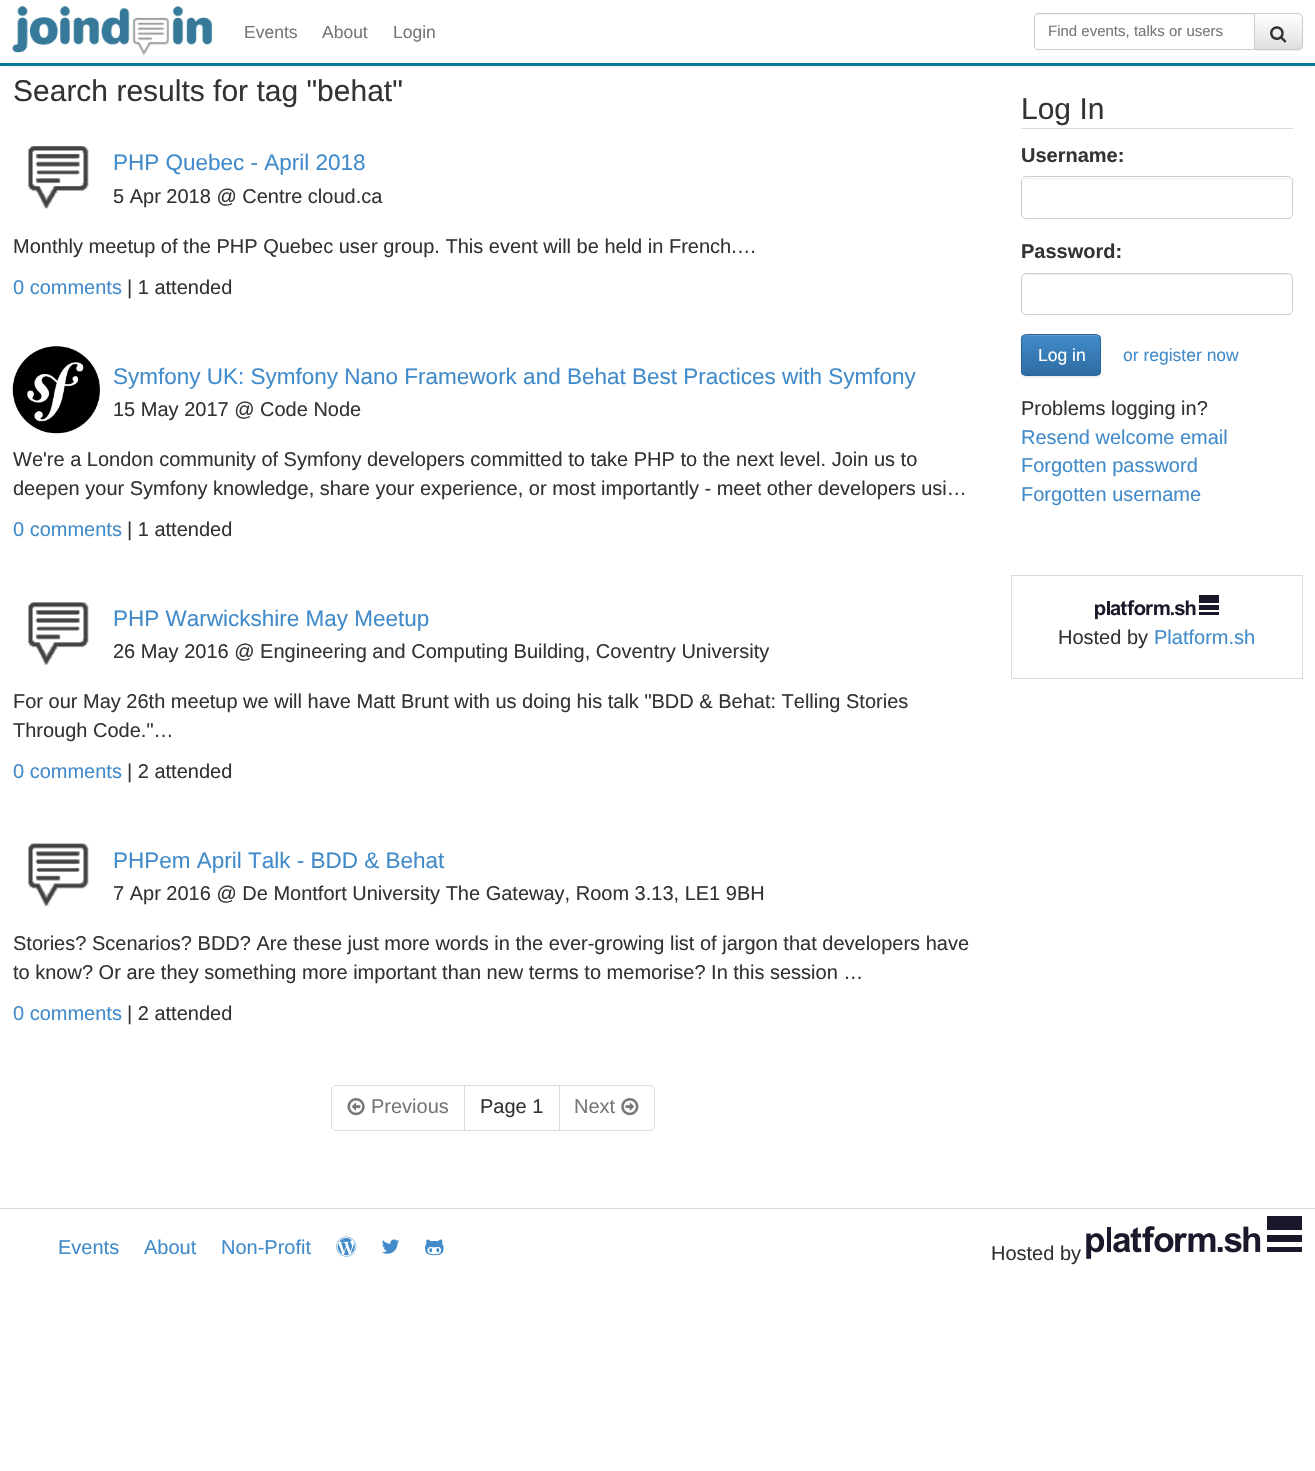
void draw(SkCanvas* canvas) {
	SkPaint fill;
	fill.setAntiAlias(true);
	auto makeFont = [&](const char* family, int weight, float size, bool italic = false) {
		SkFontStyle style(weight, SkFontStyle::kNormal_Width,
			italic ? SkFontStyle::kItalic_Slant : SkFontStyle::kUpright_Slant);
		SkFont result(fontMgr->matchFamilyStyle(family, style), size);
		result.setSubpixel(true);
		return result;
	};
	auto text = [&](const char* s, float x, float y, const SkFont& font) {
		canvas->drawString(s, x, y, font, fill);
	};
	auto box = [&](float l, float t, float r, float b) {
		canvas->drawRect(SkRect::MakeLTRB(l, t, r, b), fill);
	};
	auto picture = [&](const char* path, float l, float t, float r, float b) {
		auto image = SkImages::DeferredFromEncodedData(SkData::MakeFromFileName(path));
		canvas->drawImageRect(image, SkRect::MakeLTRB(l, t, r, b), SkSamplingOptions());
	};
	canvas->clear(0xFFFFFFFF);
	canvas->save();
	canvas->clipRect(SkRect::MakeLTRB(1, 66, 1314, 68));
	fill.setColor(0x12000000);
	fill.setMaskFilter(SkMaskFilter::MakeBlur(kNormal_SkBlurStyle, 3));
	canvas->drawRect(SkRect::MakeLTRB(0, 1, 1315, 66), fill);
	fill.setMaskFilter(nullptr);
	canvas->restore();
	fill.setColor(0xFF007B97);
	box(0, 63, 1315, 66);
	picture("image0.png", 12, 6, 213, 56);
	fill.setColor(0x12000000);
	fill.setMaskFilter(SkMaskFilter::MakeBlur(kNormal_SkBlurStyle, 0.5f));
	canvas->drawRoundRect(SkRect::MakeLTRB(1254, 14, 1303, 51), 5, 5, fill);
	fill.setMaskFilter(nullptr);
	canvas->save();
	canvas->clipPath(SkPathBuilder().moveTo(1254, 13).lineTo(1298, 13).cubicTo(1301, 13, 1303, 15, 1303, 18).lineTo(1303, 45).cubicTo(1303, 48, 1301, 50, 1298, 50).lineTo(1254, 50).close().detach(), true);
	{
		const SkColor colors[] = {0xFFFFFFFF, 0xFFE0E0E0};
		const float stops[] = {0, 1};
		const SkPoint ends[] = {{1278, 14}, {1278, 49}};
		fill.setShader(SkGradientShader::MakeLinear(ends, colors, stops, 2, SkTileMode::kClamp));
		fill.setAlpha(255);
	}
	box(1255, 14, 1303, 49);
	canvas->restore();
	fill.setStyle(SkPaint::kStroke_Style);
	fill.setStrokeWidth(1);
	fill.setShader(nullptr);
	fill.setColor(0xFFCCCCCC);
	canvas->drawPath(SkPathBuilder().moveTo(1254.5f, 13.5f).lineTo(1298, 13.5f).cubicTo(1300.5f, 13.5f, 1302.5f, 15.5f, 1302.5f, 18).lineTo(1302.5f, 45).cubicTo(1302.5f, 47.5f, 1300.5f, 49.5f, 1298, 49.5f).lineTo(1254.5f, 49.5f).close().detach(), fill);
	fill.setStyle(SkPaint::kFill_Style);
	fill.setColor(0xFFFFFFFF);
	canvas->drawPath(SkPathBuilder().moveTo(1038, 13).lineTo(1255, 13).lineTo(1255, 50).lineTo(1038, 50).cubicTo(1036, 50, 1034, 48, 1034, 46).lineTo(1034, 17).cubicTo(1034, 15, 1036, 13, 1038, 13).close().detach(), fill);
	fill.setColor(0xFFECECEC);
	canvas->drawPath(SkPathBuilder().moveTo(1038, 15).lineTo(1254, 15).lineTo(1254, 14).lineTo(1038, 14).cubicTo(1035, 14, 1035, 16, 1035, 18).cubicTo(1035, 16, 1036, 15, 1038, 15).close().detach(), fill);
	fill.setStyle(SkPaint::kStroke_Style);
	fill.setColor(0xFFCCCCCC);
	canvas->drawPath(SkPathBuilder().moveTo(1038, 13.5f).lineTo(1254.5f, 13.5f).lineTo(1254.5f, 49.5f).lineTo(1038, 49.5f).cubicTo(1036, 49.5f, 1034.5f, 48, 1034.5f, 46).lineTo(1034.5f, 17).cubicTo(1034.5f, 15, 1036, 13.5f, 1038, 13.5f).close().detach(), fill);
	picture("image1.png", 1270, 26, 1287, 43);
	picture("image2.png", 28, 146, 89, 209);
	picture("image3.png", 12, 346, 100, 434);
	picture("image4.png", 28, 602, 89, 665);
	picture("image5.png", 28, 843, 89, 906);
	fill.setColor(0xFFDDDDDD);
	canvas->drawPath(SkPathBuilder().moveTo(336, 1085.5f).lineTo(464.5f, 1085.5f).lineTo(464.5f, 1130.5f).lineTo(336, 1130.5f).cubicTo(333.5f, 1130.5f, 331.5f, 1128.5f, 331.5f, 1126).lineTo(331.5f, 1090).cubicTo(331.5f, 1087.5f, 333.5f, 1085.5f, 336, 1085.5f).close().detach(), fill);
	picture("image6.png", 347, 1098, 365, 1116);
	canvas->drawRect(SkRect::MakeLTRB(464.5f, 1085.5f, 559.5f, 1130.5f), fill);
	fill.setStyle(SkPaint::kFill_Style);
	fill.setColor(0xFFFFFFFF);
	canvas->drawPath(SkPathBuilder().moveTo(559.5f, 1085.5f).lineTo(650, 1085.5f).cubicTo(652.5f, 1085.5f, 654.5f, 1087.5f, 654.5f, 1090).lineTo(654.5f, 1126).cubicTo(654.5f, 1128.5f, 652.5f, 1130.5f, 650, 1130.5f).lineTo(559.5f, 1130.5f).close().detach(), fill);
	fill.setStyle(SkPaint::kStroke_Style);
	fill.setColor(0xFFDDDDDD);
	canvas->drawPath(SkPathBuilder().moveTo(559.5f, 1085.5f).lineTo(650, 1085.5f).cubicTo(652.5f, 1085.5f, 654.5f, 1087.5f, 654.5f, 1090).lineTo(654.5f, 1126).cubicTo(654.5f, 1128.5f, 652.5f, 1130.5f, 650, 1130.5f).lineTo(559.5f, 1130.5f).close().detach(), fill);
	picture("image7.png", 621, 1098, 639, 1116);
	fill.setStyle(SkPaint::kFill_Style);
	fill.setColor(0xFFD7DCDF);
	box(1021, 128, 1293, 129);
	fill.setColor(0xFFECECEC);
	canvas->drawPath(SkPathBuilder().moveTo(1026, 179).lineTo(1288, 179).cubicTo(1289, 179, 1290, 179, 1290, 180).lineTo(1289, 179).lineTo(1287, 178).lineTo(1027, 178).cubicTo(1026, 178, 1025, 179, 1024, 179).close().detach(), fill);
	fill.setStyle(SkPaint::kStroke_Style);
	fill.setColor(0xFFCCCCCC);
	canvas->drawRoundRect(SkRect::MakeLTRB(1021.5f, 176.5f, 1292.5f, 218.5f), 4.5f, 4.5f, fill);
	fill.setStyle(SkPaint::kFill_Style);
	fill.setColor(0xFFECECEC);
	canvas->drawPath(SkPathBuilder().moveTo(1026, 275).lineTo(1288, 275).cubicTo(1290, 275, 1291, 277, 1291, 279).lineTo(1291, 276).cubicTo(1290, 275, 1289, 274, 1287, 274).lineTo(1026, 274).lineTo(1024, 276).close().detach(), fill);
	fill.setStyle(SkPaint::kStroke_Style);
	fill.setColor(0xFFCCCCCC);
	canvas->drawRoundRect(SkRect::MakeLTRB(1021.5f, 273.5f, 1292.5f, 314.5f), 4.5f, 4.5f, fill);
	fill.setStyle(SkPaint::kFill_Style);
	fill.setColor(0x12000000);
	fill.setMaskFilter(SkMaskFilter::MakeBlur(kNormal_SkBlurStyle, 0.5f));
	canvas->drawRoundRect(SkRect::MakeLTRB(1021, 335, 1101, 378), 5, 5, fill);
	fill.setMaskFilter(nullptr);
	canvas->save();
	canvas->clipPath(SkPathBuilder().moveTo(1026, 334).lineTo(1096, 334).cubicTo(1099, 334, 1101, 336, 1101, 339).lineTo(1101, 371).cubicTo(1101, 374, 1099, 376, 1096, 376).lineTo(1026, 376).cubicTo(1023, 376, 1021, 374, 1021, 371).lineTo(1021, 339).cubicTo(1021, 336, 1023, 334, 1026, 334).close().detach(), true);
	{
		const SkColor colors[] = {0xFF428BCA, 0xFF2D6CA2};
		const float stops[] = {0, 1};
		const SkPoint ends[] = {{1061, 335}, {1061, 375}};
		fill.setShader(SkGradientShader::MakeLinear(ends, colors, stops, 2, SkTileMode::kClamp));
		fill.setAlpha(255);
	}
	box(1021, 335, 1101, 375);
	canvas->restore();
	fill.setShader(nullptr);
	fill.setColor(0xFF5E9CD2);
	canvas->drawPath(SkPathBuilder().moveTo(1026, 336).lineTo(1096, 336).cubicTo(1098, 336, 1100, 338, 1100, 340).cubicTo(1100, 338, 1100, 336, 1098, 335).lineTo(1026, 335).cubicTo(1025, 335, 1024, 336, 1024, 337).close().detach(), fill);
	fill.setStyle(SkPaint::kStroke_Style);
	fill.setColor(0xFF2B669A);
	canvas->drawRoundRect(SkRect::MakeLTRB(1021.5f, 334.5f, 1100.5f, 375.5f), 4.5f, 4.5f, fill);
	fill.setColor(0xFFD7DCDF);
	canvas->drawRect(SkRect::MakeLTRB(1011.5f, 575.5f, 1302.5f, 678.5f), fill);
	picture("image8.png", 1095, 595, 1219, 620);
	fill.setStyle(SkPaint::kFill_Style);
	box(0, 1208, 1315, 1209);
	picture("image9.png", 336, 1236, 357, 1257);
	picture("image10.png", 382, 1239, 400, 1254);
	picture("image11.png", 425, 1239, 444, 1256);
	picture("image12.png", 1086, 1216, 1302, 1259);
	auto font1 = makeFont("Liberation Sans", 400, 17.5f);
	fill.setColor(0xFF777777);
	text("Events", 244, 38, font1);
	text("About", 322, 38, font1);
	text("Login", 393, 38, font1);
	auto font2 = makeFont("Liberation Sans", 400, 15);
	text("Find events, talks or users", 1048, 36, font2);
	auto font3 = makeFont("Liberation Sans", 400, 30);
	fill.setColor(0xFF333333);
	text("Search results for tag \"behat\"", 13, 101, font3);
	auto font4 = makeFont("Liberation Sans", 400, 22.5f);
	fill.setColor(0xFF428BCA);
	text("PHP Quebec - April 2018", 113, 170, font4);
	auto font5 = makeFont("Liberation Sans", 400, 20);
	fill.setColor(0xFF333333);
	text("5 Apr 2018 @ Centre cloud.ca", 113, 203, font5);
	text("Monthly meetup of the PHP Quebec user group. This event will be held in French.…", 13, 253, font5);
	fill.setColor(0xFF428BCA);
	text("0 comments", 13, 294, font5);
	fill.setColor(0xFF333333);
	text("| 1 attended", 127, 294, font5);
	fill.setColor(0xFF428BCA);
	text("Symfony UK: Symfony Nano Framework and Behat Best Practices with Symfony", 113, 384, font4);
	fill.setColor(0xFF333333);
	text("15 May 2017 @ Code Node", 113, 416, font5);
	text("We're a London community of Symfony developers committed to take PHP to the next level. Join us to", 13, 466, font5);
	text("deepen your Symfony knowledge, share your experience, or most importantly - meet other developers usi…", 13, 495, font5);
	fill.setColor(0xFF428BCA);
	text("0 comments", 13, 536, font5);
	fill.setColor(0xFF333333);
	text("| 1 attended", 127, 536, font5);
	fill.setColor(0xFF428BCA);
	text("PHP Warwickshire May Meetup", 113, 626, font4);
	fill.setColor(0xFF333333);
	text("26 May 2016 @ Engineering and Computing Building, Coventry University", 113, 658, font5);
	text("For our May 26th meetup we will have Matt Brunt with us doing his talk \"BDD & Behat: Telling Stories", 13, 708, font5);
	text("Through Code.\"…", 13, 737, font5);
	fill.setColor(0xFF428BCA);
	text("0 comments", 13, 778, font5);
	fill.setColor(0xFF333333);
	text("| 2 attended", 127, 778, font5);
	fill.setColor(0xFF428BCA);
	text("PHPem April Talk - BDD & Behat", 113, 868, font4);
	fill.setColor(0xFF333333);
	text("7 Apr 2016 @ De Montfort University The Gateway, Room 3.13, LE1 9BH", 113, 900, font5);
	text("Stories? Scenarios? BDD? Are these just more words in the ever-growing list of jargon that developers have", 13, 950, font5);
	text("to know? Or are they something more important than new terms to memorise? In this session …", 13, 979, font5);
	fill.setColor(0xFF428BCA);
	text("0 comments", 13, 1020, font5);
	fill.setColor(0xFF333333);
	text("| 2 attended", 127, 1020, font5);
	fill.setColor(0xFF777777);
	text("Previous", 371, 1113, font5);
	fill.setColor(0xFF333333);
	text("Page 1", 480, 1113, font5);
	fill.setColor(0xFF777777);
	text("Next", 574, 1113, font5);
	fill.setColor(0xFF333333);
	text("Log In", 1021, 119, font3);
	auto font6 = makeFont("Liberation Sans", 700, 20);
	text("Username:", 1021, 162, font6);
	text("Password:", 1021, 258, font6);
	fill.setColor(0xFFFFFFFF);
	text("Log in", 1038, 361, font1);
	fill.setColor(0xFF428BCA);
	text("or register now", 1123, 361, font1);
	fill.setColor(0xFF333333);
	text("Problems logging in?", 1021, 415, font5);
	fill.setColor(0xFF428BCA);
	text("Resend welcome email", 1021, 444, font5);
	text("Forgotten password", 1021, 472, font5);
	text("Forgotten username", 1021, 501, font5);
	fill.setColor(0xFF333333);
	text("Hosted by", 1058, 644, font5);
	fill.setColor(0xFF428BCA);
	text("Platform.sh", 1154, 644, font5);
	text("Events", 58, 1254, font5);
	text("About", 144, 1254, font5);
	text("Non-Profit", 221, 1254, font5);
	fill.setColor(0xFF333333);
	text("Hosted by", 991, 1260, font5);
}
